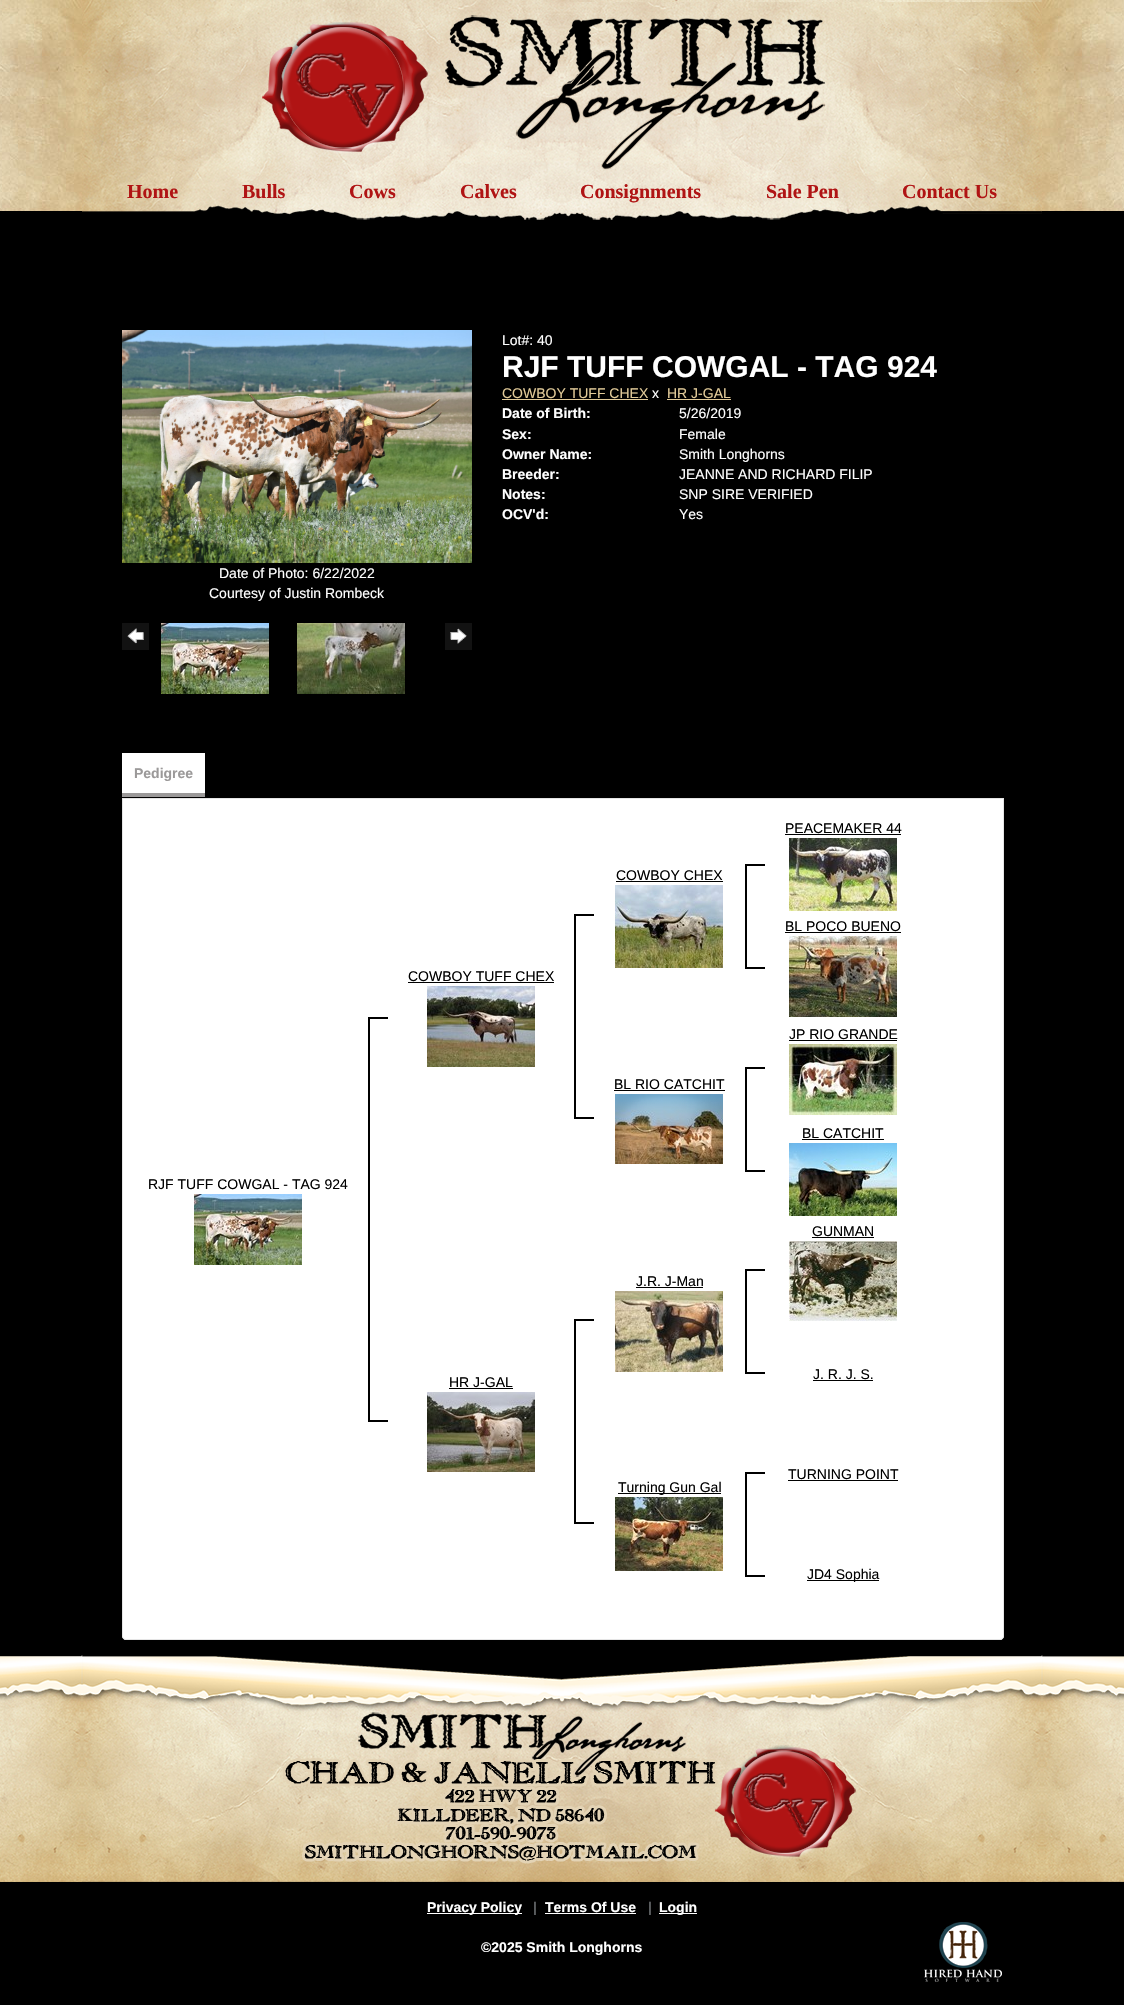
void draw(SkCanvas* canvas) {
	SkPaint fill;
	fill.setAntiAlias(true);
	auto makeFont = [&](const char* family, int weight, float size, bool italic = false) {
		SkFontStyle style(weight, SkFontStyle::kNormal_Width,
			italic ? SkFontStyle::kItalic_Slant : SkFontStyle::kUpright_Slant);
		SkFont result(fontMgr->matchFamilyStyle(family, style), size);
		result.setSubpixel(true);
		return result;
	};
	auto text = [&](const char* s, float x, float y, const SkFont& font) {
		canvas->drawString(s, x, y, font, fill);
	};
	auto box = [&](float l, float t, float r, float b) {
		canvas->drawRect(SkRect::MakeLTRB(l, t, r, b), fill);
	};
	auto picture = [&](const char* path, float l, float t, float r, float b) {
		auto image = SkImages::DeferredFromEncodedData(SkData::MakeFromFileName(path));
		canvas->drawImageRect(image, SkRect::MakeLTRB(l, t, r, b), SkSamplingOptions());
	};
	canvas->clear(0xFF000000);
	picture("image0.png", 0, 0, 1124, 211);
	fill.setColor(0xFF000000);
	box(82, 205, 1042, 211);
	picture("image1.png", 82, 0, 1042, 220);
	picture("image2.png", 262, 15, 826, 170);
	fill.setColor(0xFFE2CB99);
	box(502, 399, 648, 400);
	box(667, 399, 731, 400);
	picture("image3.png", 122, 330, 472, 563);
	picture("image4.png", 122, 623, 149, 650);
	picture("image5.png", 161, 623, 269, 694);
	picture("image6.png", 297, 623, 405, 694);
	picture("image7.png", 445, 623, 472, 650);
	fill.setColor(0xFFE5E5E5);
	box(122, 798, 1004, 799);
	fill.setColor(0xFF9B9999);
	box(122, 793, 205, 797);
	fill.setColor(0xFFFFFFFF);
	box(122, 753, 205, 793);
	canvas->drawPath(SkPathBuilder().moveTo(122, 799).lineTo(1004, 799).lineTo(1004, 1636).cubicTo(1004, 1638, 1002, 1640, 1000, 1640).lineTo(126, 1640).cubicTo(124, 1640, 122, 1638, 122, 1636).close().detach(), fill);
	fill.setColor(0xFFE5E5E5);
	canvas->drawPath(SkPathBuilder(SkPathFillType::kEvenOdd).moveTo(122, 799).lineTo(1004, 799).lineTo(1004, 1636).cubicTo(1004, 1638, 1002, 1640, 1000, 1640).lineTo(126, 1640).cubicTo(124, 1640, 122, 1638, 122, 1636).close().moveTo(123, 799).lineTo(1003, 799).lineTo(1003, 1636).cubicTo(1003, 1638, 1002, 1639, 1000, 1639).lineTo(126, 1639).cubicTo(124, 1639, 123, 1638, 123, 1636).close().detach(), fill);
	fill.setColor(0xFF000000);
	box(785, 834, 901, 835);
	picture("image8.png", 789, 838, 897, 911);
	box(616, 881, 723, 882);
	picture("image9.png", 615, 885, 723, 968);
	box(745, 864, 765, 866);
	box(745, 967, 765, 969);
	box(745, 864, 747, 969);
	box(408, 982, 554, 983);
	picture("image10.png", 427, 986, 535, 1067);
	box(574, 914, 594, 916);
	box(574, 1117, 594, 1119);
	box(574, 914, 576, 1119);
	picture("image5.png", 194, 1194, 302, 1265);
	box(368, 1017, 388, 1019);
	box(368, 1420, 388, 1422);
	box(368, 1017, 370, 1422);
	box(785, 932, 901, 933);
	picture("image11.png", 789, 936, 897, 1017);
	box(789, 1040, 897, 1041);
	picture("image12.png", 789, 1044, 897, 1115);
	box(614, 1090, 725, 1091);
	picture("image13.png", 615, 1094, 723, 1164);
	box(745, 1067, 765, 1069);
	box(745, 1170, 765, 1172);
	box(745, 1067, 747, 1172);
	box(802, 1139, 884, 1140);
	picture("image14.png", 789, 1143, 897, 1216);
	box(812, 1237, 874, 1238);
	picture("image15.png", 789, 1241, 897, 1321);
	box(636, 1287, 703, 1288);
	picture("image16.png", 615, 1291, 723, 1372);
	box(745, 1269, 765, 1271);
	box(745, 1372, 765, 1374);
	box(745, 1269, 747, 1374);
	box(449, 1388, 513, 1389);
	picture("image17.png", 427, 1392, 535, 1472);
	box(574, 1319, 594, 1321);
	box(574, 1522, 594, 1524);
	box(574, 1319, 576, 1524);
	box(813, 1380, 873, 1381);
	box(618, 1493, 721, 1494);
	picture("image18.png", 615, 1497, 723, 1571);
	box(745, 1472, 765, 1474);
	box(745, 1575, 765, 1577);
	box(745, 1472, 747, 1577);
	box(788, 1480, 898, 1481);
	box(807, 1580, 879, 1581);
	picture("image19.png", 0, 1655, 1124, 1882);
	box(82, 1655, 1042, 1882);
	picture("image20.png", 82, 1655, 1042, 1882);
	fill.setColor(0xFFFFFFFF);
	box(427, 1913, 522, 1914);
	box(545, 1913, 636, 1914);
	box(659, 1913, 697, 1914);
	picture("image21.png", 924, 1922, 1002, 1982);
	auto font1 = makeFont("Liberation Serif", 700, 20);
	fill.setColor(0xFFB01414);
	text("Home", 127, 198, font1);
	text("Bulls", 242, 198, font1);
	text("Cows", 349, 198, font1);
	text("Calves", 460, 198, font1);
	text("Consignments", 580, 198, font1);
	text("Sale Pen", 766, 198, font1);
	text("Contact Us", 902, 198, font1);
	auto font2 = makeFont("Liberation Sans", 400, 14);
	fill.setColor(0xFFFFFFFF);
	text("Lot#: 40", 502, 345, font2);
	auto font3 = makeFont("Liberation Sans", 700, 30);
	text("RJF TUFF COWGAL - TAG 924", 502, 377, font3);
	fill.setColor(0xFFE2CB99);
	text("COWBOY TUFF CHEX", 502, 398, font2);
	fill.setColor(0xFFFFFFFF);
	text("x", 652, 398, font2);
	fill.setColor(0xFFE2CB99);
	text("HR J-GAL", 667, 398, font2);
	auto font4 = makeFont("Liberation Sans", 700, 14);
	fill.setColor(0xFFFFFFFF);
	text("Date of Birth:", 502, 418, font4);
	text("5/26/2019", 679, 418, font2);
	text("Sex:", 502, 439, font4);
	text("Female", 679, 439, font2);
	text("Owner Name:", 502, 459, font4);
	text("Smith Longhorns", 679, 459, font2);
	text("Breeder:", 502, 479, font4);
	text("JEANNE AND RICHARD FILIP", 679, 479, font2);
	text("Notes:", 502, 499, font4);
	text("SNP SIRE VERIFIED", 679, 499, font2);
	text("OCV'd:", 502, 519, font4);
	text("Yes", 679, 519, font2);
	text("Date of Photo: 6/22/2022", 219, 578, font2);
	text("Courtesy of Justin Rombeck", 209, 598, font2);
	fill.setColor(0xFF9B9999);
	text("Pedigree", 134, 778, font4);
	fill.setColor(0xFF000000);
	text("PEACEMAKER 44", 785, 833, font2);
	text("COWBOY CHEX", 616, 880, font2);
	text("COWBOY TUFF CHEX", 408, 981, font2);
	text("RJF TUFF COWGAL - TAG 924", 148, 1189, font2);
	text("BL POCO BUENO", 785, 931, font2);
	text("JP RIO GRANDE", 789, 1039, font2);
	text("BL RIO CATCHIT", 614, 1089, font2);
	text("BL CATCHIT", 802, 1138, font2);
	text("GUNMAN", 812, 1236, font2);
	text("J.R. J-Man", 636, 1286, font2);
	text("HR J-GAL", 449, 1387, font2);
	text("J. R. J. S.", 813, 1379, font2);
	text("Turning Gun Gal", 618, 1492, font2);
	text("TURNING POINT", 788, 1479, font2);
	text("JD4 Sophia", 807, 1579, font2);
	fill.setColor(0xFFFFFFFF);
	text("Privacy Policy", 427, 1912, font4);
	fill.setColor(0xFF5D6062);
	text("|", 533, 1912, font4);
	fill.setColor(0xFFFFFFFF);
	text("Terms Of Use", 545, 1912, font4);
	fill.setColor(0xFF5D6062);
	text("|", 648, 1912, font4);
	fill.setColor(0xFFFFFFFF);
	text("Login", 659, 1912, font4);
	text("©2025 Smith Longhorns", 481, 1952, font4);
}
